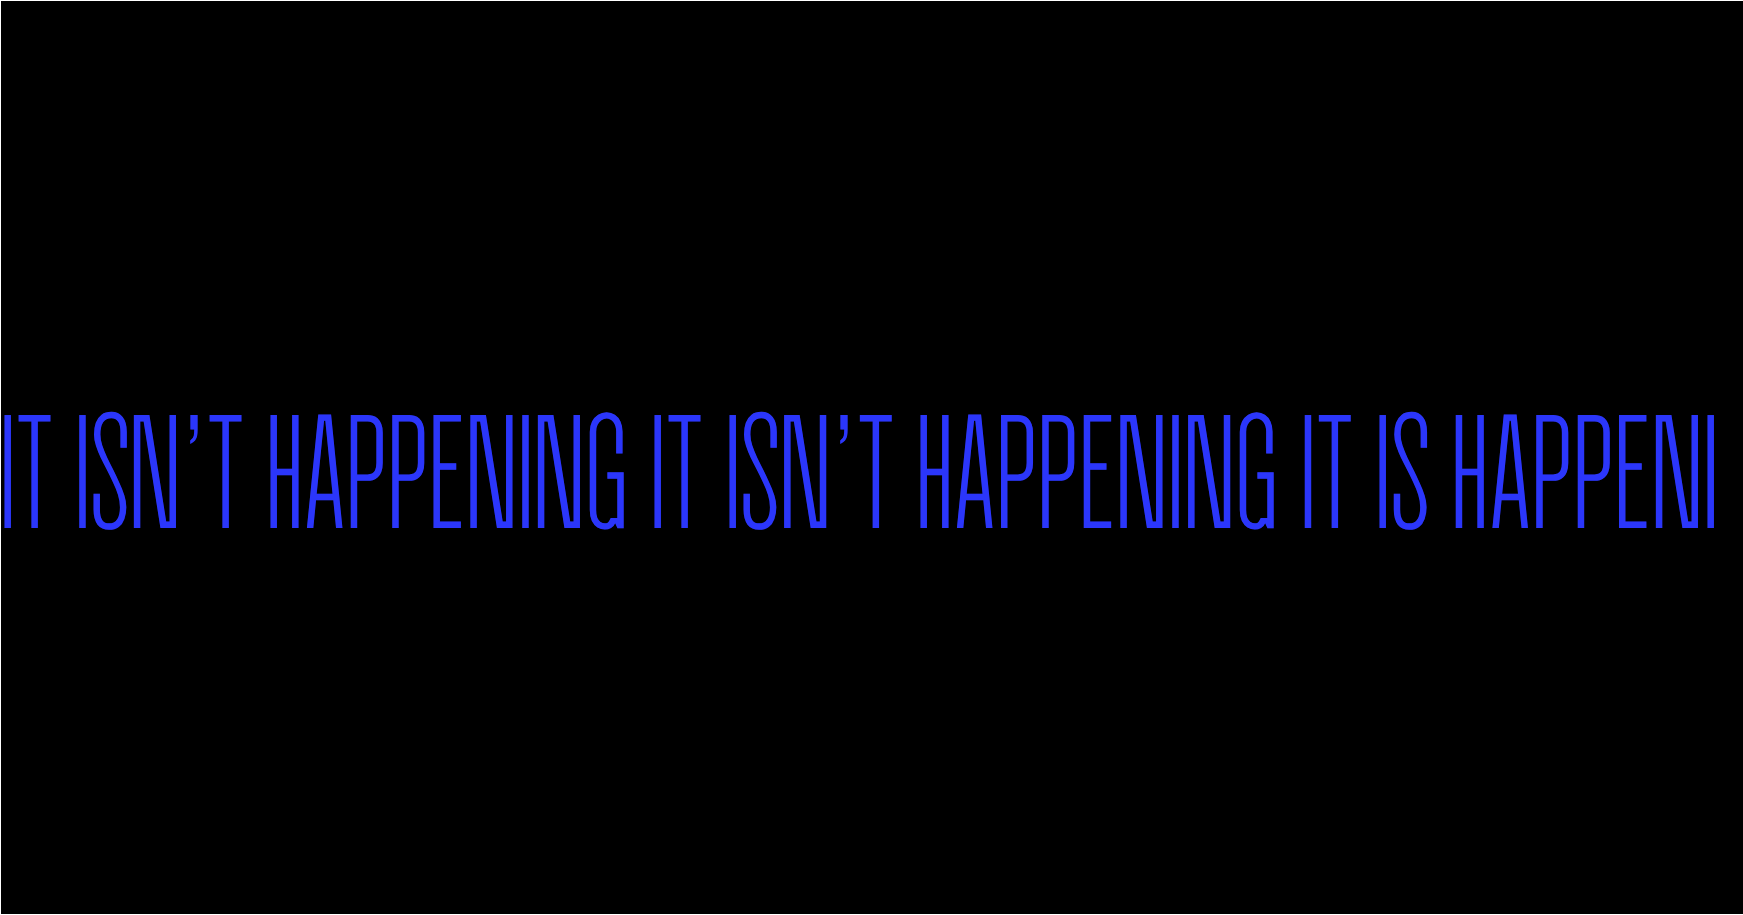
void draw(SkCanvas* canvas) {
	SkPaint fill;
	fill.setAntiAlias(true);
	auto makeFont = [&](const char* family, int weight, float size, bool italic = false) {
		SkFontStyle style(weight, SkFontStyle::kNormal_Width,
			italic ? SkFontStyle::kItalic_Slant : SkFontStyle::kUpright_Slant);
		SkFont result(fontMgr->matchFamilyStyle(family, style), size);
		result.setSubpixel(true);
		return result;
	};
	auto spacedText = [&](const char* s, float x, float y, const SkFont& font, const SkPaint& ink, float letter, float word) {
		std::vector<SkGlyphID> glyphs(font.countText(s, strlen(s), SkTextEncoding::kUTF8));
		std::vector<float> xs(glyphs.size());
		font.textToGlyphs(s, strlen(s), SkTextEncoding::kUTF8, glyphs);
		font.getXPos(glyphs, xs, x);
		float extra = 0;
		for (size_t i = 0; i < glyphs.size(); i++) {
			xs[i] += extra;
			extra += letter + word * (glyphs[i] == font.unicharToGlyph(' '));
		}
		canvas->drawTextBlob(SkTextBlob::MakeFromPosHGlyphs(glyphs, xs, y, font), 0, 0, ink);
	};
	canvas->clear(0xFF000000);
	fill.setStyle(SkPaint::kStroke_Style);
	fill.setStrokeWidth(1);
	fill.setColor(0xFFFFFFFF);
	canvas->drawRect(SkRect::MakeLTRB(0.5f, 0.5f, 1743.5f, 914.5f), fill);
	auto font1 = makeFont("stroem", 400, 160);
	fill.setStyle(SkPaint::kFill_Style);
	fill.setColor(0xFF2B36FB);
	spacedText("IT ISN’T HAPPENING IT ISN’T HAPPENING IT IS HAPPENI", 1, 528, font1, fill, 3, 0);
}
